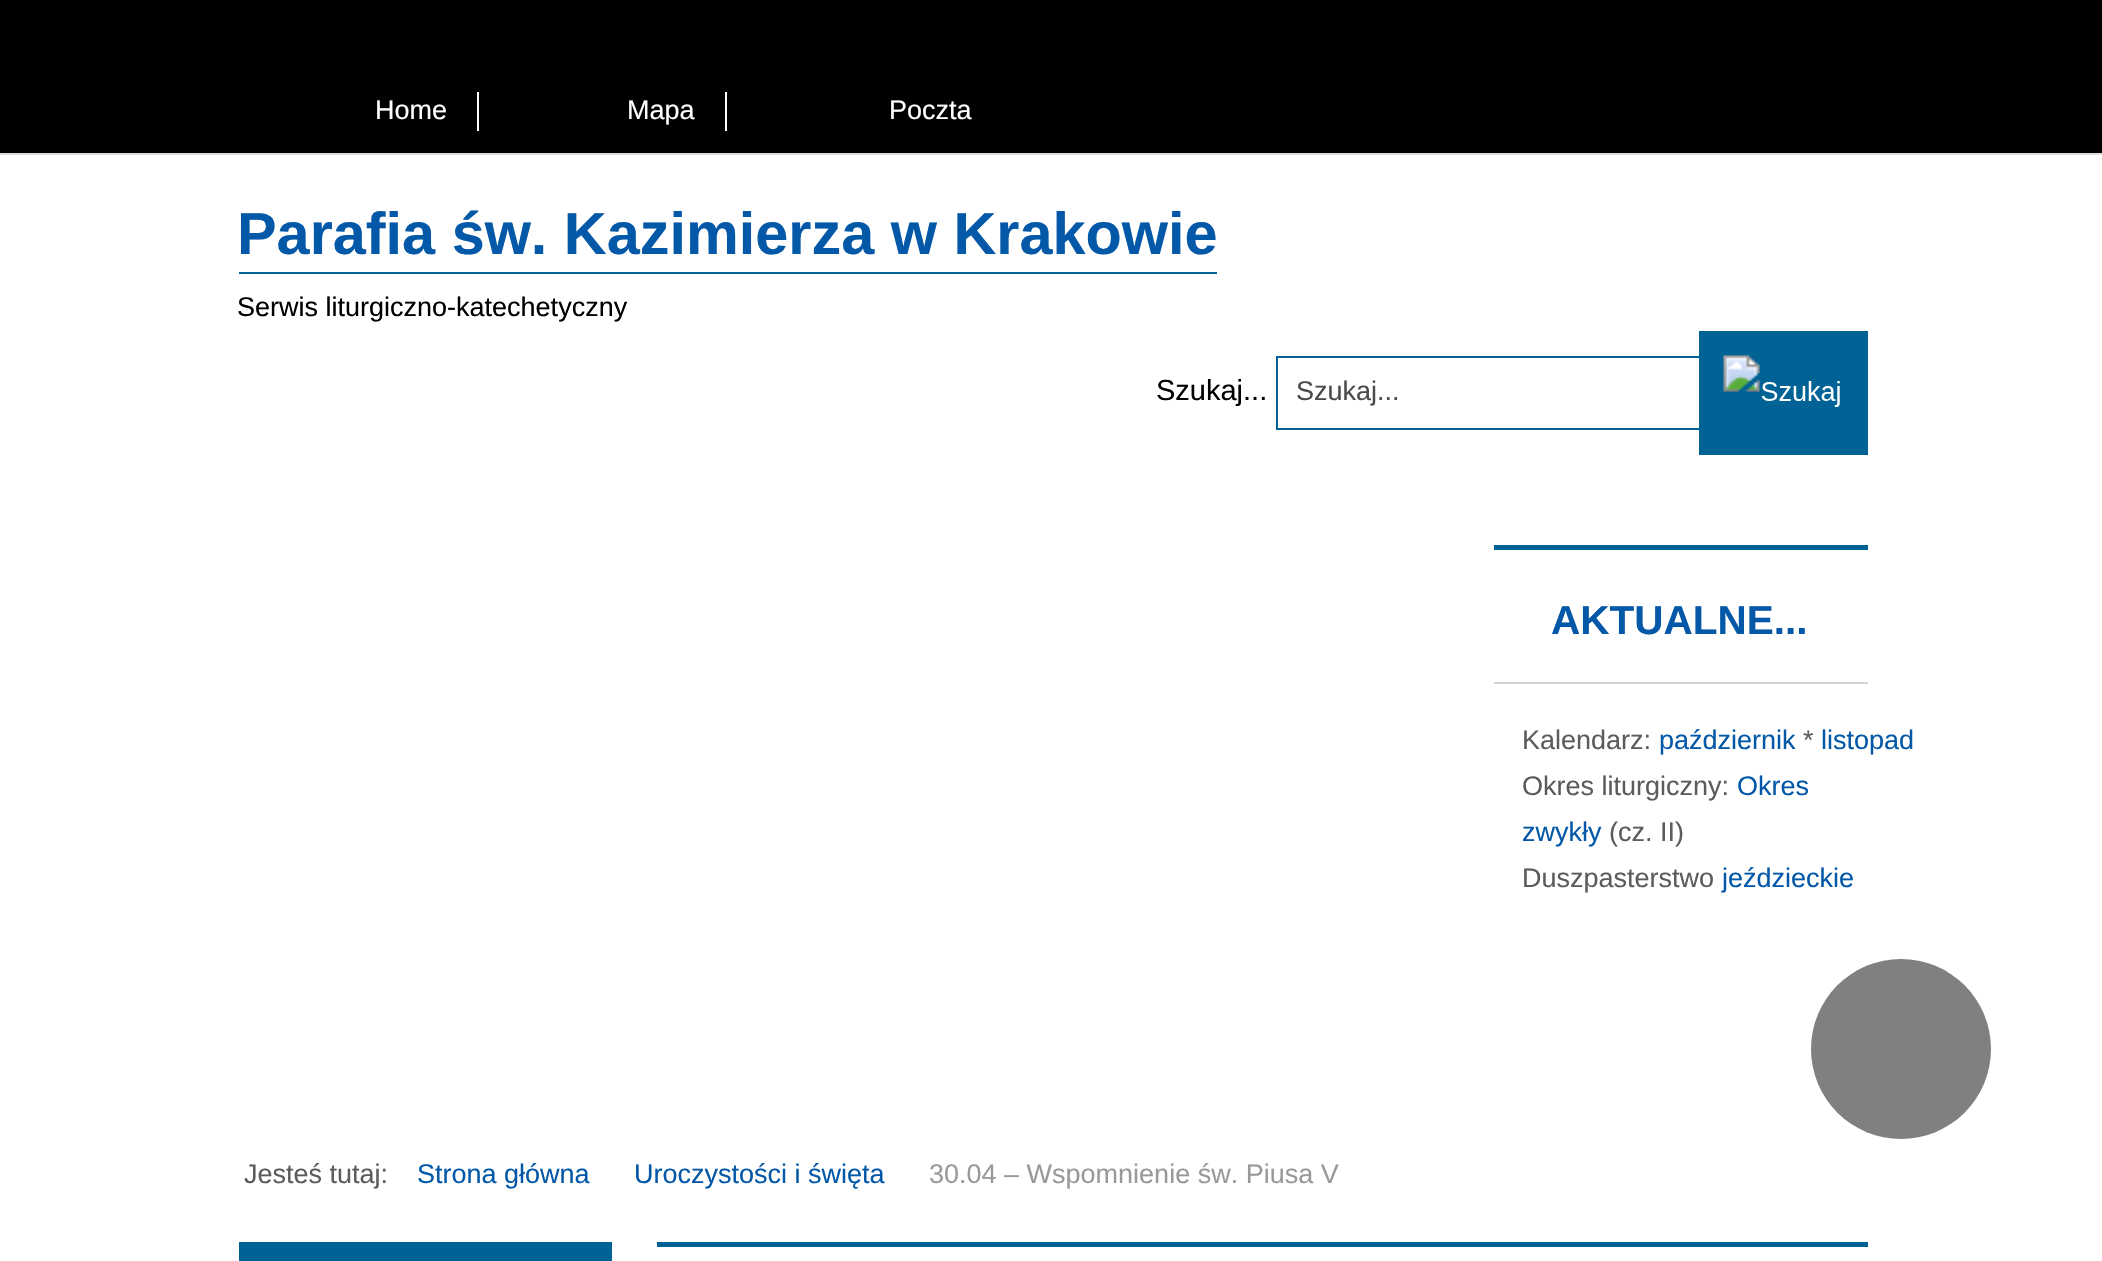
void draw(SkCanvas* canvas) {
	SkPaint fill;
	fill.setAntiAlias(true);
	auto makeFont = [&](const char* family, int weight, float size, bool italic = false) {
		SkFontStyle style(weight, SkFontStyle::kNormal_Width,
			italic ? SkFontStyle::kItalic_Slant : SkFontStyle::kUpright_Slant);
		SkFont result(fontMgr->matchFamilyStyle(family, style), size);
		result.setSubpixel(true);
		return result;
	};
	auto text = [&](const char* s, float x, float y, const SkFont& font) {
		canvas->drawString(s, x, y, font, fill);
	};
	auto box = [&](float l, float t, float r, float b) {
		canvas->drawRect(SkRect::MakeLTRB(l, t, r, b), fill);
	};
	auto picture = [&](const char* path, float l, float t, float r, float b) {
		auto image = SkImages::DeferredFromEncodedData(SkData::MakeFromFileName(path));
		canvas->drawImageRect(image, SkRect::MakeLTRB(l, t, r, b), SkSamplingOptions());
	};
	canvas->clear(0xFFFFFFFF);
	fill.setColor(0xFF000000);
	box(0, 0, 2102, 153);
	fill.setColor(0xFFDDDDDD);
	box(0, 153, 2102, 155);
	fill.setColor(0xFFFFFFFF);
	box(477, 92, 479, 131);
	box(725, 92, 727, 131);
	fill.setColor(0xFF006295);
	box(239, 272, 1217, 274);
	fill.setStyle(SkPaint::kStroke_Style);
	fill.setStrokeWidth(2);
	canvas->drawRect(SkRect::MakeLTRB(1277, 357, 1702, 429), fill);
	fill.setStyle(SkPaint::kFill_Style);
	box(1699, 331, 1868, 455);
	picture("image0.png", 1723, 355, 1840, 407);
	box(1494, 545, 1868, 550);
	fill.setColor(0xFFD5D5D5);
	box(1494, 682, 1868, 684);
	fill.setColor(0xFF808080);
	canvas->drawCircle(1901, 1049, 90, fill);
	fill.setColor(0xFF006295);
	box(239, 1242, 612, 1261);
	box(657, 1242, 1868, 1247);
	auto font1 = makeFont("Liberation Sans", 400, 27);
	fill.setColor(0xFFFFFFFF);
	text("Home", 375, 119, font1);
	text("Mapa", 627, 119, font1);
	text("Poczta", 889, 119, font1);
	auto font2 = makeFont("Liberation Sans", 700, 59.4f);
	fill.setColor(0xFF0358A8);
	text("Parafia św. Kazimierza w Krakowie", 237, 254, font2);
	fill.setColor(0xFF000000);
	text("Serwis liturgiczno-katechetyczny", 237, 316, font1);
	auto font3 = makeFont("Liberation Sans", 400, 29);
	text("Szukaj...", 1156, 400, font3);
	fill.setColor(0xFF4B4B4B);
	text("Szukaj...", 1296, 400, font1);
	auto font4 = makeFont("Liberation Sans", 700, 40.5f);
	fill.setColor(0xFF0358A8);
	text("AKTUALNE...", 1551, 634, font4);
	fill.setColor(0xFF5C5C5C);
	text("Kalendarz:", 1522, 749, font1);
	fill.setColor(0xFF0358A8);
	text("październik", 1659, 749, font1);
	fill.setColor(0xFF5C5C5C);
	text("*", 1803, 749, font1);
	fill.setColor(0xFF0358A8);
	text("listopad", 1821, 749, font1);
	fill.setColor(0xFF5C5C5C);
	text("Okres liturgiczny:", 1522, 795, font1);
	fill.setColor(0xFF0358A8);
	text("Okres", 1737, 795, font1);
	text("zwykły", 1522, 841, font1);
	fill.setColor(0xFF5C5C5C);
	text("(cz. II)", 1609, 841, font1);
	text("Duszpasterstwo", 1522, 887, font1);
	fill.setColor(0xFF0358A8);
	text("jeździeckie", 1722, 887, font1);
	fill.setColor(0xFF5C5C5C);
	text("Jesteś tutaj:", 244, 1183, font1);
	fill.setColor(0xFF0358A8);
	text("Strona główna", 417, 1183, font1);
	text("Uroczystości i święta", 634, 1183, font1);
	fill.setColor(0xFF999999);
	text("30.04 – Wspomnienie św. Piusa V", 929, 1183, font1);
}
